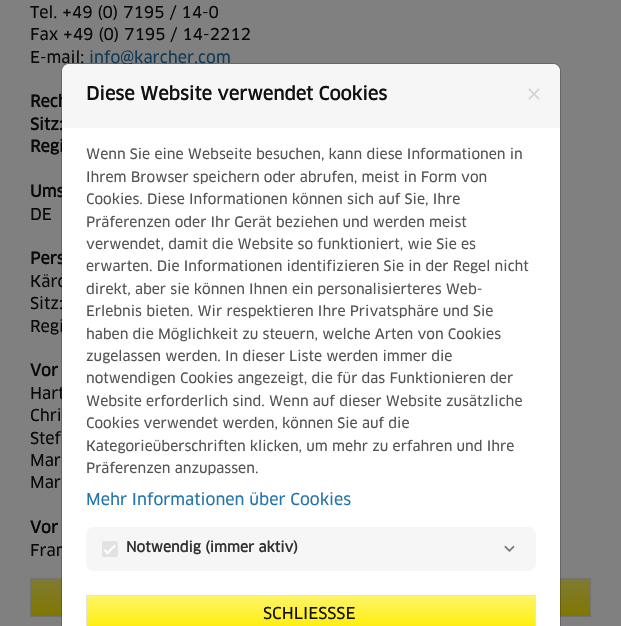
void draw(SkCanvas* canvas) {
	SkPaint fill;
	fill.setAntiAlias(true);
	auto makeFont = [&](const char* family, int weight, float size, bool italic = false) {
		SkFontStyle style(weight, SkFontStyle::kNormal_Width,
			italic ? SkFontStyle::kItalic_Slant : SkFontStyle::kUpright_Slant);
		SkFont result(fontMgr->matchFamilyStyle(family, style), size);
		result.setSubpixel(true);
		return result;
	};
	auto text = [&](const char* s, float x, float y, const SkFont& font) {
		canvas->drawString(s, x, y, font, fill);
	};
	auto box = [&](float l, float t, float r, float b) {
		canvas->drawRect(SkRect::MakeLTRB(l, t, r, b), fill);
	};
	auto roundBox = [&](float l, float t, float r, float b, float radius) {
		canvas->drawRoundRect(SkRect::MakeLTRB(l, t, r, b), radius, radius, fill);
	};
	auto picture = [&](const char* path, float l, float t, float r, float b) {
		auto image = SkImages::DeferredFromEncodedData(SkData::MakeFromFileName(path));
		canvas->drawImageRect(image, SkRect::MakeLTRB(l, t, r, b), SkSamplingOptions());
	};
	canvas->clear(0xFF808080);
	{
		const SkColor colors[] = {0xFF807700, 0xFF807A33};
		const float stops[] = {0, 1};
		const SkPoint ends[] = {{311, 616}, {311, 579}};
		fill.setShader(SkGradientShader::MakeLinear(ends, colors, stops, 2, SkTileMode::kClamp));
		fill.setAlpha(255);
	}
	box(31, 579, 590, 616);
	fill.setStyle(SkPaint::kStroke_Style);
	fill.setStrokeWidth(1);
	fill.setShader(nullptr);
	fill.setColor(0xFF727272);
	canvas->drawRect(SkRect::MakeLTRB(30.5f, 578.5f, 590.5f, 616.5f), fill);
	auto font1 = makeFont("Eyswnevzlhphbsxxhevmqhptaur", 400, 16);
	fill.setStyle(SkPaint::kFill_Style);
	fill.setColor(0xFF090909);
	text("Tel. +49 (0) 7195 / 14-0", 30, 18, font1);
	text("Fax +49 (0) 7195 / 14-2212", 30, 40, font1);
	text("E-mail:", 30, 63, font1);
	fill.setColor(0xFF113A56);
	text("info@karcher.com", 89, 63, font1);
	auto font2 = makeFont("Eyswnevzlhphbsxxhevmqhptaur", 700, 16);
	fill.setColor(0xFF090909);
	text("Rech", 30, 107, font2);
	text("Sitz:", 30, 130, font2);
	text("Regi", 30, 152, font2);
	text("Ums", 30, 197, font2);
	text("DE", 30, 220, font1);
	text("Pers", 30, 264, font2);
	text("Kärc", 30, 287, font1);
	text("Sitz:", 30, 309, font1);
	text("Regi", 30, 332, font1);
	text("Vor", 30, 376, font2);
	text("Hart", 30, 399, font1);
	text("Chri", 30, 421, font1);
	text("Stef", 30, 444, font1);
	text("Mar", 30, 466, font1);
	text("Mar", 30, 488, font1);
	text("Vor", 30, 533, font2);
	text("Fran", 30, 556, font1);
	fill.setColor(0xFFFFFFFF);
	canvas->drawPath(SkPathBuilder().moveTo(69, 64).lineTo(553, 64).cubicTo(557, 64, 560, 67, 560, 71).lineTo(560, 626).lineTo(62, 626).lineTo(62, 71).cubicTo(62, 67, 65, 64, 69, 64).close().detach(), fill);
	fill.setStyle(SkPaint::kStroke_Style);
	fill.setColor(0x33000000);
	canvas->drawRoundRect(SkRect::MakeLTRB(61.5f, 63.5f, 560.5f, 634.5f), 7.5f, 7.5f, fill);
	fill.setStyle(SkPaint::kFill_Style);
	fill.setColor(0xFFF6F6F6);
	canvas->drawPath(SkPathBuilder().moveTo(70, 64).lineTo(552, 64).cubicTo(556.5f, 64, 560, 67.5f, 560, 72).lineTo(560, 128).lineTo(62, 128).lineTo(62, 72).cubicTo(62, 67.5f, 65.5f, 64, 70, 64).close().detach(), fill);
	auto font3 = makeFont("Eyswnevzlhphbsxxhevmqhptaur", 700, 18);
	fill.setColor(0xFF111111);
	text("Diese Website verwendet Cookies", 86, 100, font3);
	picture("image0.png", 528, 88, 540, 100);
	auto font4 = makeFont("Eyswnevzlhphbsxxhevmqhptaur", 400, 14);
	fill.setColor(0xFF545454);
	text("Wenn Sie eine Webseite besuchen, kann diese Informationen in", 86, 159, font4);
	text("Ihrem Browser speichern oder abrufen, meist in Form von", 86, 182, font4);
	text("Cookies. Diese Informationen können sich auf Sie, Ihre", 86, 204, font4);
	text("Präferenzen oder Ihr Gerät beziehen und werden meist", 86, 227, font4);
	text("verwendet, damit die Website so funktioniert, wie Sie es", 86, 249, font4);
	text("erwarten. Die Informationen identifizieren Sie in der Regel nicht", 86, 271, font4);
	text("direkt, aber sie können Ihnen ein personalisierteres Web-", 86, 294, font4);
	text("Erlebnis bieten. Wir respektieren Ihre Privatsphäre und Sie", 86, 316, font4);
	text("haben die Möglichkeit zu steuern, welche Arten von Cookies", 86, 339, font4);
	text("zugelassen werden. In dieser Liste werden immer die", 86, 361, font4);
	text("notwendigen Cookies angezeigt, die für das Funktionieren der", 86, 383, font4);
	text("Website erforderlich sind. Wenn auf dieser Website zusätzliche", 86, 406, font4);
	text("Cookies verwendet werden, können Sie auf die", 86, 428, font4);
	text("Kategorieüberschriften klicken, um mehr zu erfahren und Ihre", 86, 451, font4);
	text("Präferenzen anzupassen.", 86, 473, font4);
	fill.setColor(0xFF2274AC);
	text("Mehr Informationen über Cookies", 86, 505, font1);
	fill.setColor(0xFFF6F6F6);
	roundBox(86, 527, 536, 571, 8);
	fill.setColor(0xFFE2E2E2);
	canvas->drawRoundRect(SkRect::MakeLTRB(103, 542, 117, 556), 1, 1, fill);
	fill.setStyle(SkPaint::kStroke_Style);
	fill.setStrokeWidth(2);
	canvas->drawRoundRect(SkRect::MakeLTRB(103, 542, 117, 556), 1, 1, fill);
	auto font5 = makeFont("Eyswnevzlhphbsxxhevmqhptaur", 700, 14);
	fill.setStyle(SkPaint::kFill_Style);
	fill.setColor(0xFF333333);
	text("Notwendig (immer aktiv)", 126, 552, font5);
	fill.setColor(0xFFFFFFFF);
	canvas->drawPath(SkPathBuilder().moveTo(106, 553).lineTo(114.5f, 544.5f).lineTo(116, 546).lineTo(107.5f, 554.5f).close().detach(), fill);
	canvas->drawPath(SkPathBuilder().moveTo(103.5f, 550.5f).lineTo(105, 549).lineTo(109, 553).lineTo(107.5f, 554.5f).close().detach(), fill);
	picture("image1.png", 504, 545, 515, 552);
	{
		const SkColor colors[] = {0xFFFFED00, 0xFFFFF466};
		const float stops[] = {0, 1};
		const SkPoint ends[] = {{311, 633}, {311, 596}};
		fill.setShader(SkGradientShader::MakeLinear(ends, colors, stops, 2, SkTileMode::kClamp));
		fill.setAlpha(255);
	}
	box(87, 596, 535, 626);
	fill.setStyle(SkPaint::kStroke_Style);
	fill.setStrokeWidth(1);
	fill.setShader(nullptr);
	fill.setColor(0xFFE3E3E3);
	canvas->drawRect(SkRect::MakeLTRB(86.5f, 595.5f, 535.5f, 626.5f), fill);
	fill.setStyle(SkPaint::kFill_Style);
	fill.setColor(0xFF111111);
	text("SCHLIESSSE", 263, 619, font1);
}
